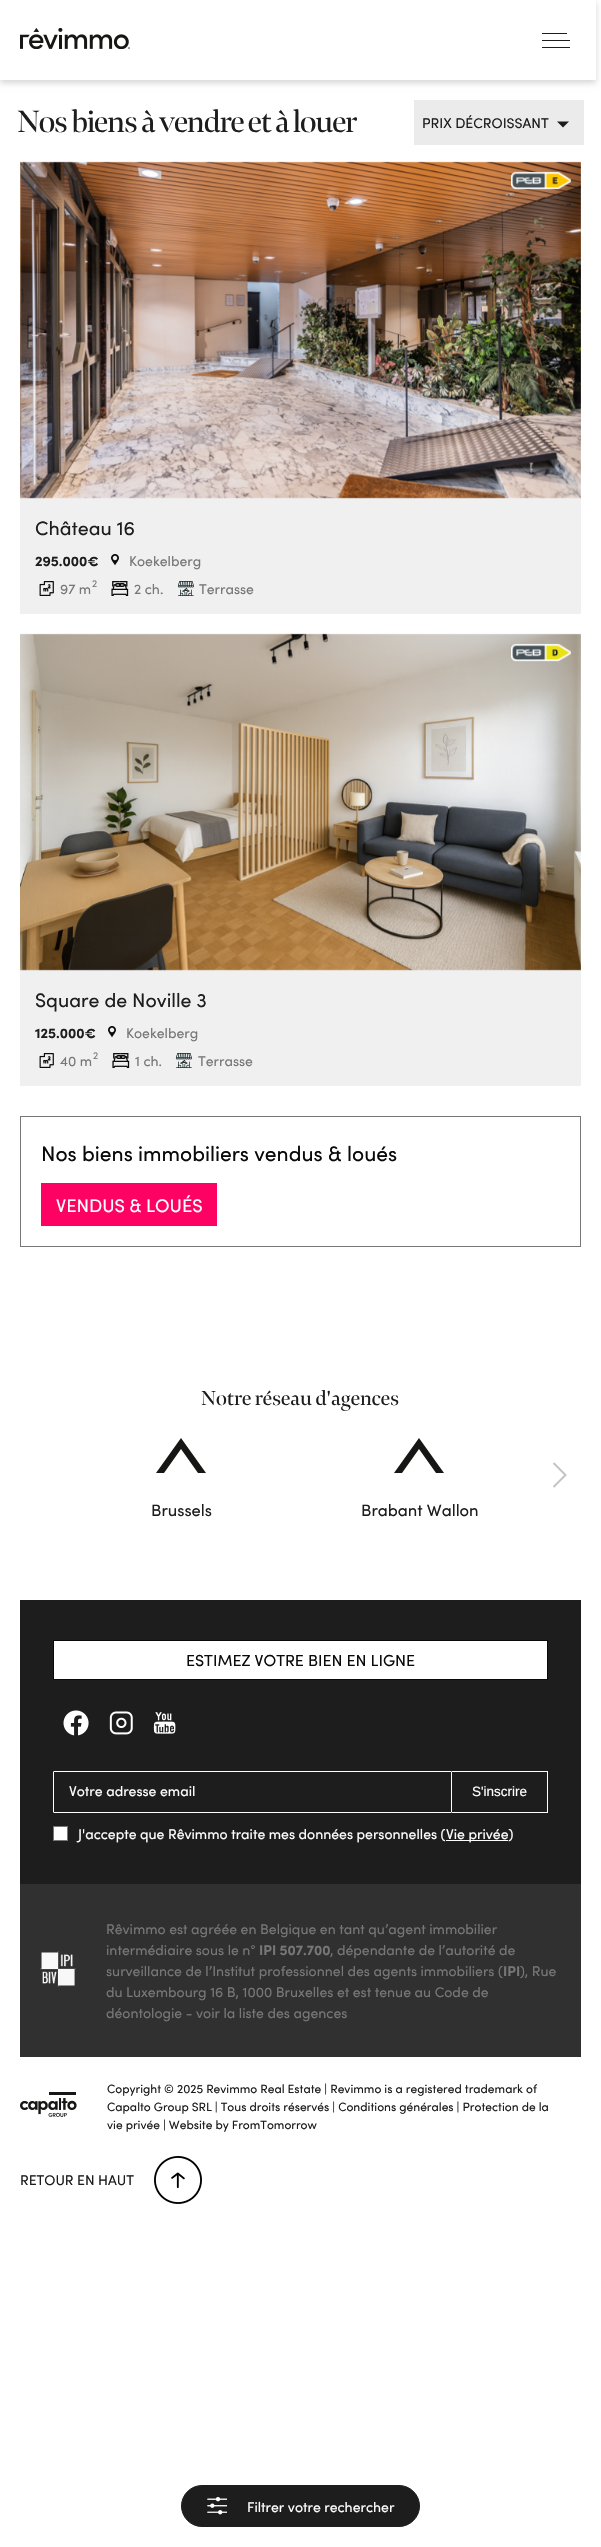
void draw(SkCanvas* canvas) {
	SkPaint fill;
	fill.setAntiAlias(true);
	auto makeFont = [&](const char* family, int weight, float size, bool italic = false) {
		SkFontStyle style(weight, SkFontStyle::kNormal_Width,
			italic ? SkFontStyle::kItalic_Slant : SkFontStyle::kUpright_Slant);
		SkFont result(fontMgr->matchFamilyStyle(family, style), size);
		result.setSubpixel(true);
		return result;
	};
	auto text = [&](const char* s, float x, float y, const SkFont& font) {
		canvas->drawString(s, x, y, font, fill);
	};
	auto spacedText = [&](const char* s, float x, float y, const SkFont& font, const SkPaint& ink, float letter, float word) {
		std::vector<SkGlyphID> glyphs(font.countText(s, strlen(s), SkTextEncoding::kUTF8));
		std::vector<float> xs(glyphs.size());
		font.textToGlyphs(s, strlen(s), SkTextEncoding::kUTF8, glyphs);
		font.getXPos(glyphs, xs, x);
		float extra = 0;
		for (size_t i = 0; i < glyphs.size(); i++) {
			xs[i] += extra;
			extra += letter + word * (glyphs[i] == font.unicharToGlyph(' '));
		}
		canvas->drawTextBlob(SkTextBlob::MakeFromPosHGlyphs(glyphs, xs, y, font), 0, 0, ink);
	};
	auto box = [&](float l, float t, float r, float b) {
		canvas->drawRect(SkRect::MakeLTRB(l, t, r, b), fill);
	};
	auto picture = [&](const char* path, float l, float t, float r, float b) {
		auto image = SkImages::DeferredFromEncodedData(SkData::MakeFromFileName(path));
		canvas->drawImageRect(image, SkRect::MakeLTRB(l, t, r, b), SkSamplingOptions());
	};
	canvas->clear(0xFFFFFFFF);
	canvas->save();
	canvas->clipPath(SkPathBuilder(SkPathFillType::kEvenOdd).moveTo(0, 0).lineTo(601, 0).lineTo(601, 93).lineTo(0, 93).close().moveTo(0, 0).lineTo(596, 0).lineTo(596, 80).lineTo(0, 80).close().detach(), true);
	fill.setColor(0x29000000);
	fill.setMaskFilter(SkMaskFilter::MakeBlur(kNormal_SkBlurStyle, 3));
	canvas->drawRect(SkRect::MakeLTRB(0, 3, 596, 83), fill);
	fill.setMaskFilter(nullptr);
	canvas->restore();
	picture("image0.png", 20, 28, 130, 49);
	fill.setColor(0xFF1D1D1D);
	box(542, 33, 567, 34);
	box(542, 40, 570, 41);
	box(542, 47, 570, 48);
	fill.setColor(0xFFEBEBEB);
	box(414, 100, 584, 145);
	fill.setColor(0xFF1D1D1D);
	canvas->drawPath(SkPathBuilder().moveTo(557, 121.5f).lineTo(569, 121.5f).lineTo(563, 127.5f).close().detach(), fill);
	fill.setColor(0xFFF0F0F0);
	box(20, 498, 581, 614);
	picture("image1.png", 20, 161, 581, 499);
	picture("image2.png", 511, 171, 571, 190);
	picture("image3.png", 111, 554, 119, 566);
	picture("image4.png", 39, 581, 54, 596);
	picture("image5.png", 111, 581, 129, 596);
	picture("image6.png", 177, 581, 194, 596);
	box(20, 970, 581, 1086);
	picture("image7.png", 20, 633, 581, 971);
	picture("image8.png", 511, 643, 571, 662);
	picture("image3.png", 108, 1026, 116, 1038);
	picture("image4.png", 39, 1053, 54, 1068);
	picture("image5.png", 112, 1053, 130, 1068);
	picture("image6.png", 175, 1053, 192, 1068);
	fill.setStyle(SkPaint::kStroke_Style);
	fill.setStrokeWidth(1);
	fill.setColor(0xFF777777);
	canvas->drawRect(SkRect::MakeLTRB(20.5f, 1116.5f, 580.5f, 1246.5f), fill);
	fill.setStyle(SkPaint::kFill_Style);
	fill.setColor(0xFFFD0263);
	box(41, 1183, 217, 1226);
	fill.setColor(0xFF1D1D1D);
	canvas->drawRoundRect(SkRect::MakeLTRB(181.5f, 2485.5f, 419.5f, 2526.5f), 20.5f, 20.5f, fill);
	fill.setStyle(SkPaint::kStroke_Style);
	canvas->drawRoundRect(SkRect::MakeLTRB(181.5f, 2485.5f, 419.5f, 2526.5f), 20.5f, 20.5f, fill);
	picture("image9.png", 207, 2497, 227, 2515);
	fill.setStrokeWidth(2);
	fill.setColor(0xFFC4C4C4);
	canvas->drawPath(SkPathBuilder().moveTo(553.5f, 1487).lineTo(565.5f, 1475).lineTo(553.5f, 1463).detach(), fill);
	fill.setStyle(SkPaint::kFill_Style);
	fill.setColor(0xFF161615);
	canvas->drawPath(SkPathBuilder().moveTo(164, 1473).lineTo(181, 1449).lineTo(198, 1473).lineTo(206, 1473).lineTo(181, 1438).lineTo(156, 1473).close().detach(), fill);
	canvas->drawPath(SkPathBuilder().moveTo(402, 1473).lineTo(419, 1449).lineTo(436, 1473).lineTo(444, 1473).lineTo(419, 1438).lineTo(394, 1473).close().detach(), fill);
	fill.setColor(0xFF1D1D1D);
	box(20, 1600, 581, 1884);
	fill.setColor(0xFFFFFFFF);
	canvas->drawRect(SkRect::MakeLTRB(53.5f, 1640.5f, 547.5f, 1679.5f), fill);
	fill.setStyle(SkPaint::kStroke_Style);
	fill.setStrokeWidth(1);
	fill.setColor(0xFF0A0A0A);
	canvas->drawRect(SkRect::MakeLTRB(53.5f, 1640.5f, 547.5f, 1679.5f), fill);
	picture("image10.png", 63, 1710, 89, 1736);
	picture("image11.png", 109, 1711, 133, 1735);
	picture("image12.png", 153, 1712, 176, 1734);
	fill.setColor(0xFFFFFFFF);
	canvas->drawRoundRect(SkRect::MakeLTRB(53.5f, 1771.5f, 451.5f, 1812.5f), 0.5f, 0.5f, fill);
	fill.setStyle(SkPaint::kFill_Style);
	box(452, 1771, 548, 1772);
	box(547, 1771, 548, 1813);
	box(452, 1812, 548, 1813);
	canvas->drawRect(SkRect::MakeLTRB(53.5f, 1826.5f, 67.5f, 1840.5f), fill);
	fill.setStyle(SkPaint::kStroke_Style);
	fill.setColor(0xFF777777);
	canvas->drawRect(SkRect::MakeLTRB(53.5f, 1826.5f, 67.5f, 1840.5f), fill);
	fill.setStyle(SkPaint::kFill_Style);
	fill.setColor(0xFFFFFFFF);
	box(446, 1840, 508, 1841);
	fill.setColor(0xFF303030);
	box(20, 1884, 581, 2057);
	picture("image13.png", 40, 1951, 76, 1987);
	picture("image14.png", 20, 2092, 77, 2117);
	picture("image15.png", 154, 2156, 202, 2204);
	auto font1 = makeFont("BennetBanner", 400, 31.9f);
	fill.setColor(0xFF1D1D1D);
	spacedText("Nos biens à vendre et à louer", 17, 132, font1, fill, -1.1f, 0);
	auto font2 = makeFont("Sofia", 400, 14);
	text("PRIX DÉCROISSANT", 422, 128, font2);
	auto font3 = makeFont("Sofia", 400, 19.5f);
	text("Château 16", 35, 535, font3);
	auto font4 = makeFont("Sofia", 700, 14);
	text("295.000€", 35, 566, font4);
	fill.setColor(0xFF777777);
	text("Koekelberg", 129, 566, font2);
	text("97 m", 60, 594, font2);
	auto font5 = makeFont("Sofia", 400, 10);
	text("2", 92, 587, font5);
	text("2 ch.", 134, 594, font2);
	text("Terrasse", 199, 594, font2);
	fill.setColor(0xFF1D1D1D);
	text("Square de Noville 3", 35, 1007, font3);
	text("125.000€", 35, 1038, font4);
	fill.setColor(0xFF777777);
	text("Koekelberg", 126, 1038, font2);
	text("40 m", 60, 1066, font2);
	text("2", 93, 1059, font5);
	text("1 ch.", 135, 1066, font2);
	text("Terrasse", 198, 1066, font2);
	auto font6 = makeFont("Sofia", 400, 21);
	fill.setColor(0xFF0A0A0A);
	text("Nos biens immobiliers vendus & loués", 41, 1161, font6);
	auto font7 = makeFont("Sofia", 400, 18.25f);
	fill.setColor(0xFFFFFFFF);
	text("VENDUS & LOUÉS", 56, 1212, font7);
	text("Filtrer votre rechercher", 247, 2512, font2);
	auto font8 = makeFont("BennetBanner", 400, 21);
	fill.setColor(0xFF1D1D1D);
	text("Notre réseau d'agences", 201, 1405, font8);
	auto font9 = makeFont("Sofia", 400, 16.5f);
	text("Brussels", 151, 1516, font9);
	text("Brabant Wallon", 361, 1516, font9);
	auto font10 = makeFont("Sofia", 400, 16);
	fill.setColor(0xFF0A0A0A);
	text("ESTIMEZ VOTRE BIEN EN LIGNE", 186, 1666, font10);
	fill.setColor(0xFFFFFFFF);
	text("Votre adresse email", 69, 1796, font2);
	auto font11 = makeFont("Liberation Sans", 400, 13.5f);
	text("S'inscrire", 472, 1796, font11);
	text("J'accepte que Rêvimmo traite mes données personnelles (", 78, 1839, font2);
	text("Vie privée)", 446, 1839, font2);
	fill.setColor(0xFF777777);
	text("Rêvimmo est agréée en Belgique en tant qu’agent immobilier", 106, 1934, font2);
	text("intermédiaire sous le n°", 106, 1955, font2);
	text("IPI 507.700", 259, 1955, font4);
	text(", dépendante de l’autorité de", 330, 1955, font2);
	text("surveillance de l’Institut professionnel des agents immobiliers (", 106, 1976, font2);
	text("IPI", 503, 1976, font4);
	text("), Rue", 520, 1976, font2);
	text("du Luxembourg 16 B, 1000 Bruxelles et est tenue au Code de", 106, 1997, font2);
	text("déontologie - voir la liste des agences", 106, 2018, font2);
	auto font12 = makeFont("Sofia", 400, 12);
	fill.setColor(0xFF1D1D1D);
	text("Copyright © 2025 Revimmo Real Estate | Revimmo is a registered trademark of", 107, 2093, font12);
	text("Capalto Group SRL | Tous droits réservés | Conditions générales | Protection de la", 107, 2111, font12);
	text("vie privée | Website by FromTomorrow", 107, 2129, font12);
	text("RETOUR EN HAUT", 20, 2185, font2);
}
